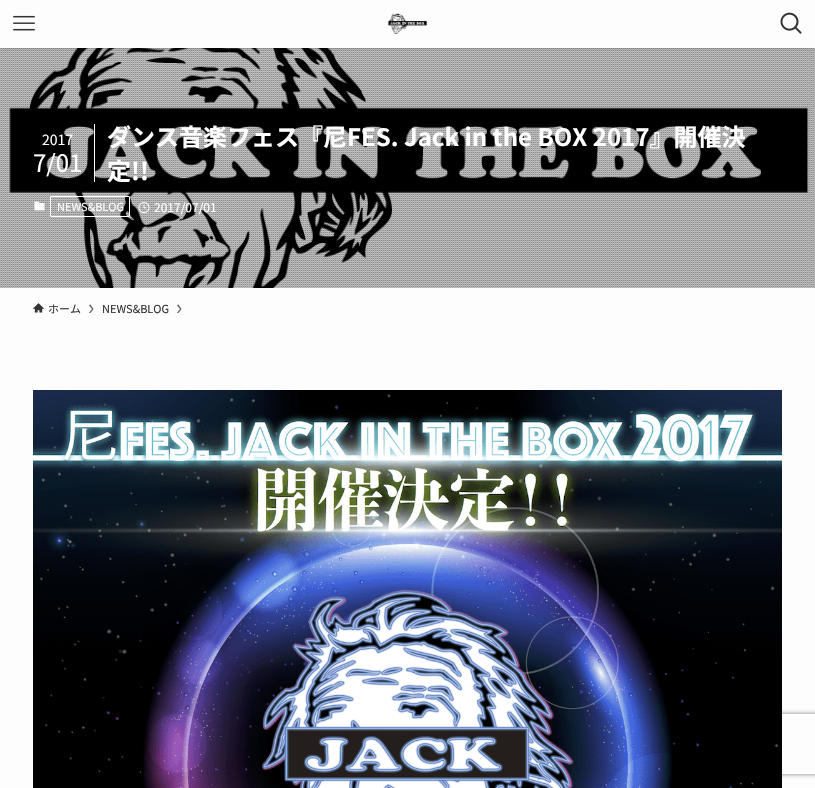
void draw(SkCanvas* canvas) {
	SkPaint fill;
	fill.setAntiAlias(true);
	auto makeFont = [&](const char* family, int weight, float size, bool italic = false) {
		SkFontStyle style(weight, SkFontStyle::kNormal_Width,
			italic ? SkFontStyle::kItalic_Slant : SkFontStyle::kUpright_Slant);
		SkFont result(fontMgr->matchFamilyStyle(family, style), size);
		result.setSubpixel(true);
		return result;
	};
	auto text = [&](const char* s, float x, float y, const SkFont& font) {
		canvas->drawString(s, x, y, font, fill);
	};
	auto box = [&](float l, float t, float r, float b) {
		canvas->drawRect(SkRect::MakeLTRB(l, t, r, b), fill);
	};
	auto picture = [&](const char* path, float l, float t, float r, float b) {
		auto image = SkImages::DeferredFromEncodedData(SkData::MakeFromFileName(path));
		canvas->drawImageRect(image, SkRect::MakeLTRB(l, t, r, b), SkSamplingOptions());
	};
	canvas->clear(0xFFFDFDFD);
	fill.setColor(0xFFC0C0C0);
	box(0, 48, 815, 288);
	picture("image4.png", 9, 48, 809, 288);
	picture("image3.png", 0, 48, 815, 288);
	canvas->save();
	canvas->clipRect(SkRect::MakeLTRB(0, 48, 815, 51));
	fill.setColor(0x1F000000);
	fill.setMaskFilter(SkMaskFilter::MakeBlur(kNormal_SkBlurStyle, 2));
	canvas->drawRect(SkRect::MakeLTRB(0, 1, 815, 49), fill);
	fill.setMaskFilter(nullptr);
	canvas->restore();
	picture("image0.png", 13, 15, 35, 31);
	picture("image1.png", 387, 13, 427, 34);
	picture("image2.png", 780, 12, 802, 34);
	fill.setColor(0xFFFFFFFF);
	box(94, 124, 95, 182);
	picture("image5.png", 34, 201, 45, 211);
	fill.setStyle(SkPaint::kStroke_Style);
	fill.setStrokeWidth(1);
	canvas->drawRoundRect(SkRect::MakeLTRB(50.5f, 196.5f, 129.5f, 216.5f), 0.5f, 0.5f, fill);
	picture("image6.png", 138, 202, 150, 213);
	picture("image7.png", 33, 303, 44, 313);
	fill.setStyle(SkPaint::kFill_Style);
	fill.setColor(0xFF5B5B5B);
	canvas->drawPath(SkPathBuilder().moveTo(90.5f, 304.5f).lineTo(89, 305).lineTo(92, 309).lineTo(89, 313).lineTo(90.5f, 313).lineTo(93.5f, 309).close().detach(), fill);
	canvas->drawPath(SkPathBuilder().moveTo(178.5f, 304.5f).lineTo(177, 305).lineTo(180, 309).lineTo(177, 313).lineTo(178.5f, 313).lineTo(181.5f, 309).close().detach(), fill);
	canvas->save();
	canvas->clipPath(SkPathBuilder(SkPathFillType::kEvenOdd).moveTo(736, 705).lineTo(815, 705).lineTo(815, 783).lineTo(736, 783).close().moveTo(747, 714).lineTo(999, 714).cubicTo(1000, 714, 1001, 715, 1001, 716).lineTo(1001, 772).cubicTo(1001, 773, 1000, 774, 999, 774).lineTo(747, 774).cubicTo(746, 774, 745, 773, 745, 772).lineTo(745, 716).cubicTo(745, 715, 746, 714, 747, 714).close().detach(), true);
	fill.setColor(0xFF808080);
	fill.setMaskFilter(SkMaskFilter::MakeBlur(kNormal_SkBlurStyle, 2.5f));
	canvas->drawRoundRect(SkRect::MakeLTRB(745, 714, 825, 774), 2, 2, fill);
	fill.setMaskFilter(nullptr);
	canvas->restore();
	picture("image8.png", 33, 390, 782, 788);
	auto font1 = makeFont("Noto Sans JP", 400, 14);
	fill.setColor(0xFFFFFFFF);
	text("2017", 42, 145, font1);
	auto font2 = makeFont("Noto Sans JP", 400, 24);
	text("7/01", 33, 172, font2);
	auto font3 = makeFont("Noto Sans JP", 700, 24);
	text("ダンス音楽フェス『尼FES. Jack in the BOX 2017』開催決", 107, 146, font3);
	text("定!!", 107, 180, font3);
	auto font4 = makeFont("Noto Sans JP", 400, 11);
	text("NEWS&BLOG", 57, 211, font4);
	auto font5 = makeFont("Noto Sans JP", 400, 12);
	text("2017/07/01", 154, 212, font5);
	fill.setColor(0xFF333333);
	text("ホーム", 48, 313, font4);
	text("NEWS&BLOG", 102, 313, font4);
}
